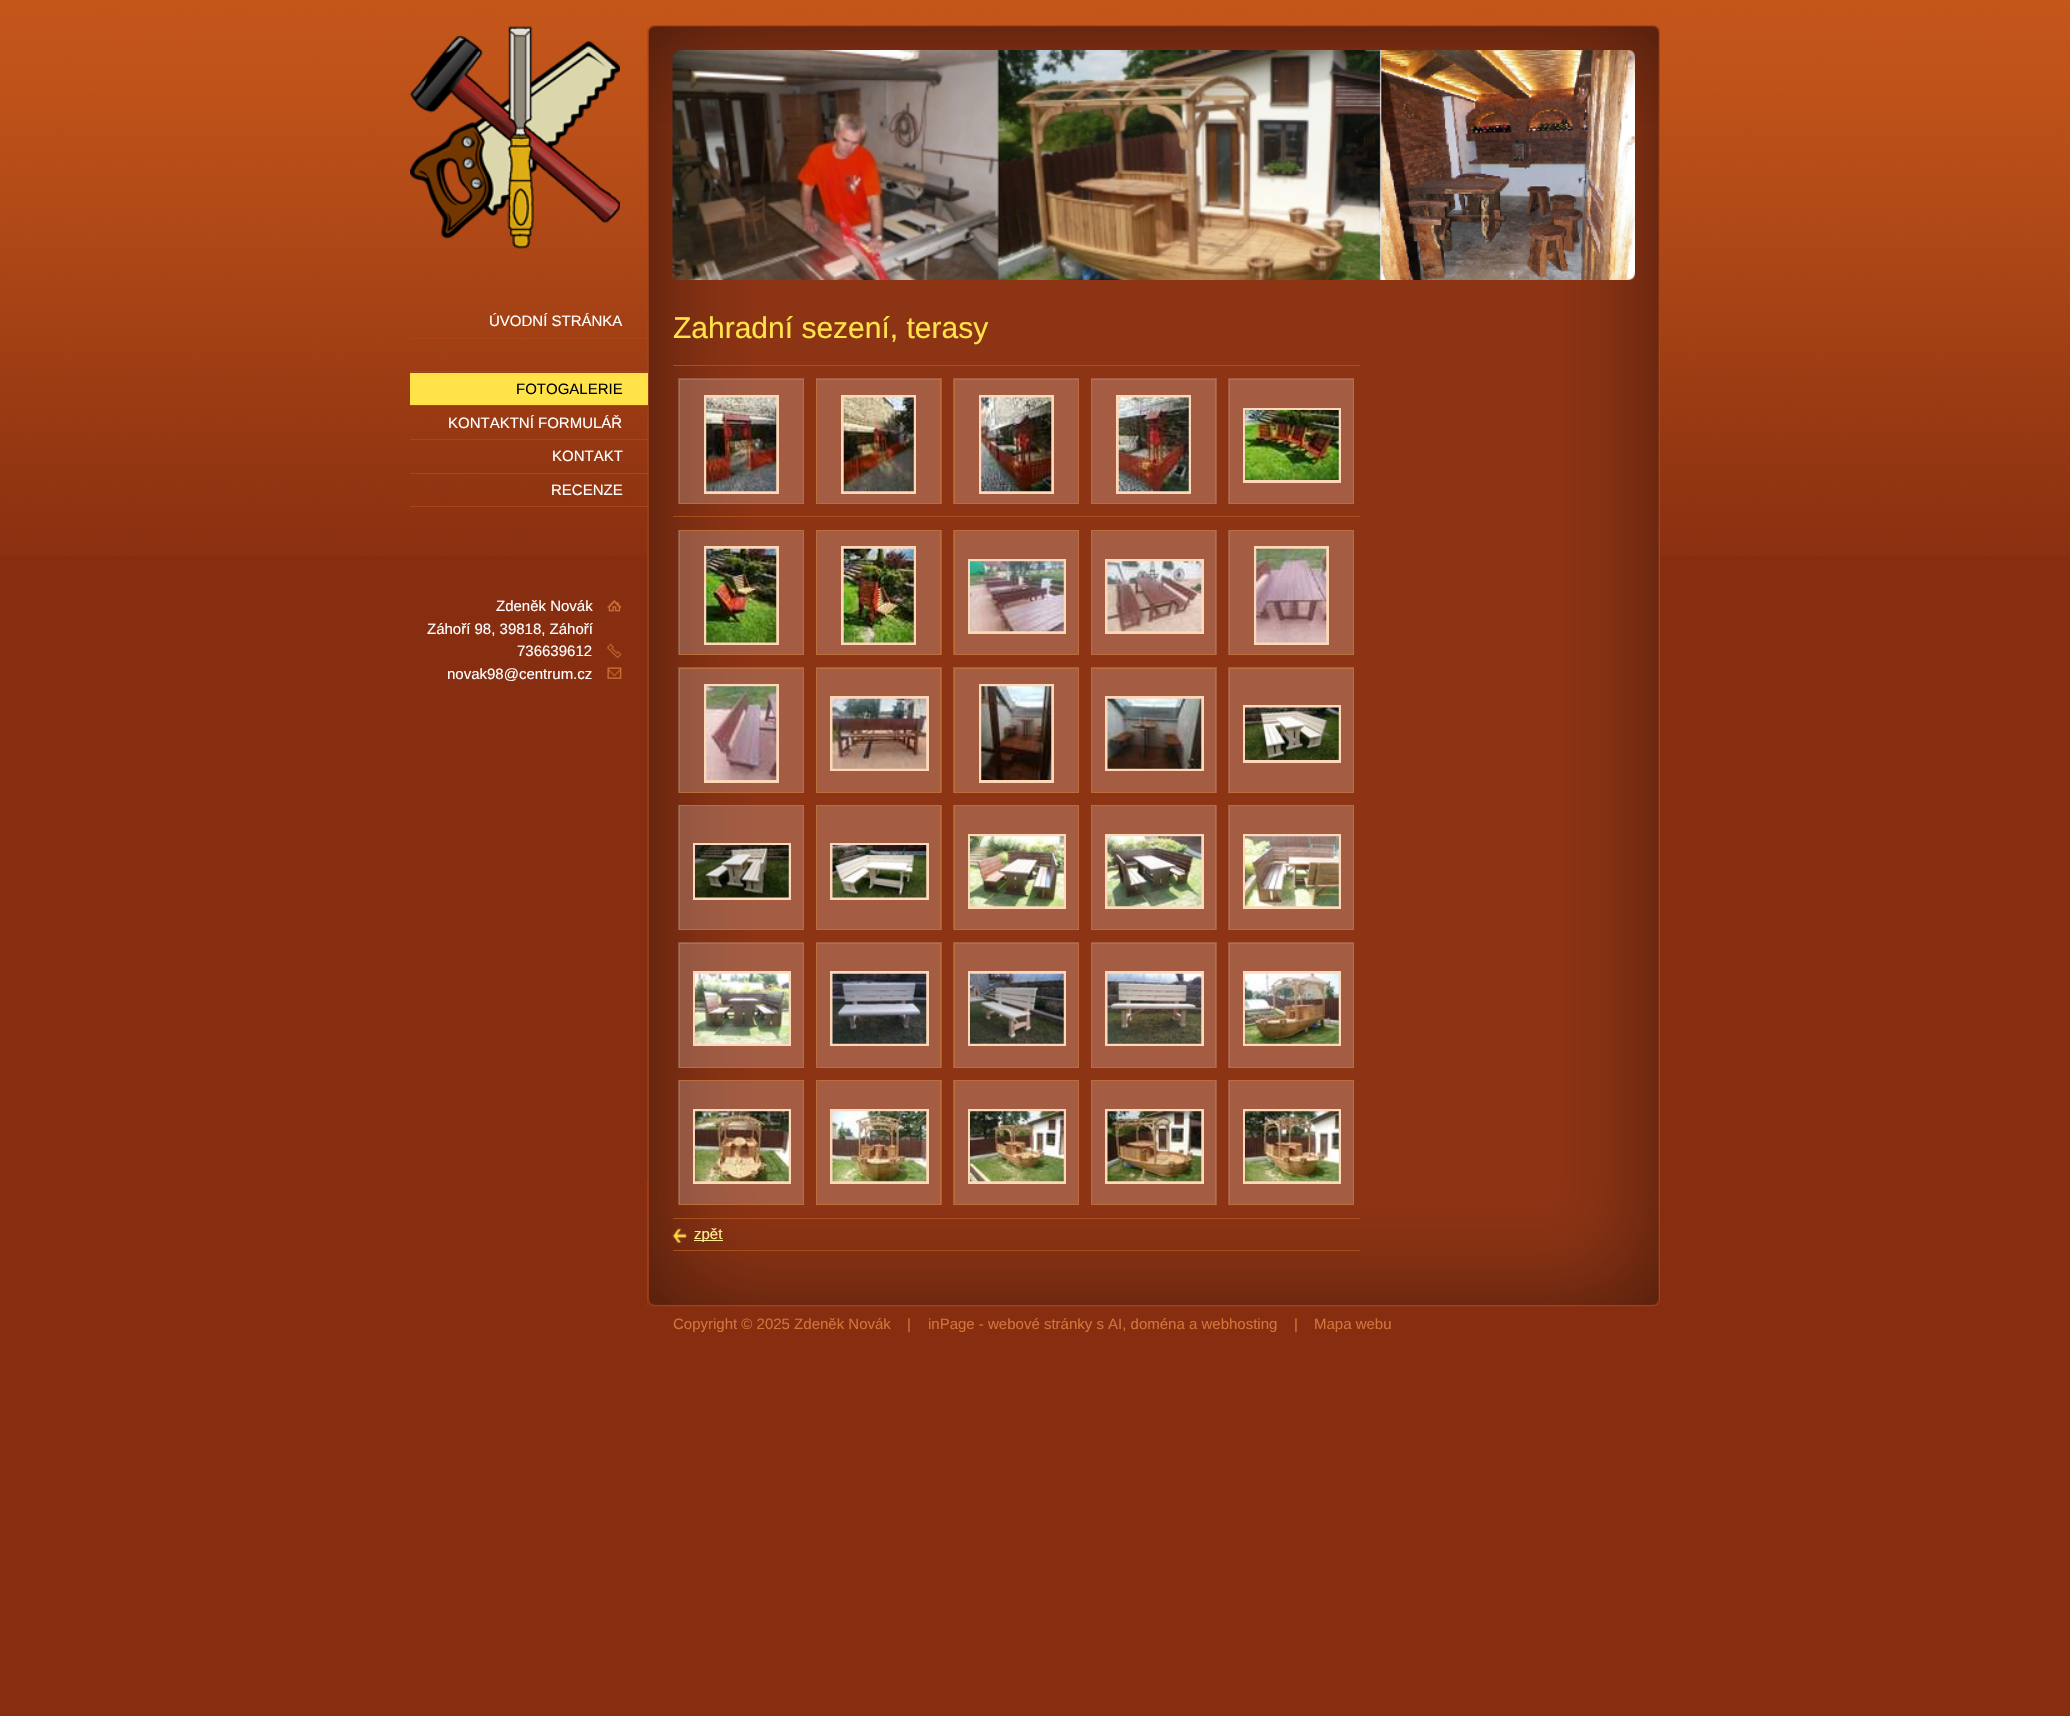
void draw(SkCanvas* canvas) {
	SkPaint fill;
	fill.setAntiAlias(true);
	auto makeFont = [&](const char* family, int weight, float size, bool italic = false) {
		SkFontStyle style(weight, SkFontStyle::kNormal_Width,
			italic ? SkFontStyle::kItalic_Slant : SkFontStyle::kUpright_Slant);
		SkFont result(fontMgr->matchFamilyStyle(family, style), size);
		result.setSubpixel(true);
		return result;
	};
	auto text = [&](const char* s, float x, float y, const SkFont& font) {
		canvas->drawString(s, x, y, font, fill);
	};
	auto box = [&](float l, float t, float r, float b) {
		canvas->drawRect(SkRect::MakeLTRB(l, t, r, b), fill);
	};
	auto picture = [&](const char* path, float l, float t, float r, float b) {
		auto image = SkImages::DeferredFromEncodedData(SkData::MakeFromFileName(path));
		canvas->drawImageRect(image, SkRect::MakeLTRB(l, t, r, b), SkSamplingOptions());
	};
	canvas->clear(0xFF872E10);
	picture("image0.png", 0, 0, 2070, 556);
	picture("image1.png", 410, 26, 620, 249);
	picture("image10.png", 647, 25, 1660, 1307);
	picture("image11.png", 647, 25, 1660, 124);
	picture("image2.png", 672, 50, 1635, 280);
	picture("image3.png", 673, 50, 680, 57);
	picture("image4.png", 1626, 50, 1635, 59);
	picture("image5.png", 672, 273, 680, 280);
	picture("image6.png", 1626, 271, 1635, 280);
	fill.setColor(0xFFAC441A);
	box(410, 338, 648, 339);
	box(410, 371, 648, 372);
	fill.setColor(0xFFFFE349);
	box(410, 373, 648, 405);
	fill.setColor(0xFFAC441A);
	box(410, 405, 648, 406);
	box(410, 439, 648, 440);
	box(410, 473, 648, 474);
	box(410, 506, 648, 507);
	picture("image7.png", 607, 599, 622, 612);
	picture("image8.png", 607, 643, 622, 658);
	picture("image9.png", 607, 667, 622, 679);
	picture("image12.png", 647, 1180, 1660, 1307);
	fill.setColor(0xFFA94E1C);
	box(673, 365, 1360, 366);
	fill.setColor(0x33FFFFFF);
	box(678, 378, 804, 504);
	fill.setStyle(SkPaint::kStroke_Style);
	fill.setStrokeWidth(1);
	fill.setColor(0xFFBB6E3B);
	canvas->drawRect(SkRect::MakeLTRB(679.5f, 379.5f, 803.5f, 503.5f), fill);
	fill.setStrokeWidth(3);
	fill.setColor(0xFFFFD8B9);
	canvas->drawRect(SkRect::MakeLTRB(705.5f, 396.5f, 777.5f, 492.5f), fill);
	picture("image13.png", 706, 397, 777, 492);
	fill.setStyle(SkPaint::kFill_Style);
	fill.setColor(0xFFA45D43);
	box(816, 378, 942, 504);
	fill.setStyle(SkPaint::kStroke_Style);
	fill.setStrokeWidth(1);
	fill.setColor(0xFFBB6E3B);
	canvas->drawRect(SkRect::MakeLTRB(816.5f, 379.5f, 940.5f, 503.5f), fill);
	fill.setStrokeWidth(3);
	fill.setColor(0xFFFFD8B9);
	canvas->drawRect(SkRect::MakeLTRB(842.5f, 396.5f, 914.5f, 492.5f), fill);
	picture("image14.png", 843, 397, 914, 492);
	fill.setStyle(SkPaint::kFill_Style);
	fill.setColor(0xFFA45D43);
	box(953, 378, 1079, 504);
	fill.setStyle(SkPaint::kStroke_Style);
	fill.setStrokeWidth(1);
	fill.setColor(0xFFBB6E3B);
	canvas->drawRect(SkRect::MakeLTRB(954.5f, 379.5f, 1078.5f, 503.5f), fill);
	fill.setStrokeWidth(3);
	fill.setColor(0xFFFFD8B9);
	canvas->drawRect(SkRect::MakeLTRB(980.5f, 396.5f, 1052.5f, 492.5f), fill);
	picture("image15.png", 981, 397, 1052, 492);
	fill.setStyle(SkPaint::kFill_Style);
	fill.setColor(0xFFA45D43);
	box(1091, 378, 1217, 504);
	fill.setStyle(SkPaint::kStroke_Style);
	fill.setStrokeWidth(1);
	fill.setColor(0xFFBB6E3B);
	canvas->drawRect(SkRect::MakeLTRB(1091.5f, 379.5f, 1215.5f, 503.5f), fill);
	fill.setStrokeWidth(3);
	fill.setColor(0xFFFFD8B9);
	canvas->drawRect(SkRect::MakeLTRB(1117.5f, 396.5f, 1189.5f, 492.5f), fill);
	picture("image16.png", 1118, 397, 1189, 492);
	fill.setStyle(SkPaint::kFill_Style);
	fill.setColor(0xFFA45D43);
	box(1228, 378, 1354, 504);
	fill.setStyle(SkPaint::kStroke_Style);
	fill.setStrokeWidth(1);
	fill.setColor(0xFFBB6E3B);
	canvas->drawRect(SkRect::MakeLTRB(1229.5f, 379.5f, 1353.5f, 503.5f), fill);
	fill.setStrokeWidth(3);
	fill.setColor(0xFFFFD8B9);
	canvas->drawRect(SkRect::MakeLTRB(1244.5f, 409.5f, 1339.5f, 481.5f), fill);
	picture("image17.png", 1245, 410, 1339, 480);
	fill.setStyle(SkPaint::kFill_Style);
	fill.setColor(0xFFA94E1C);
	box(673, 516, 1360, 517);
	fill.setColor(0x33FFFFFF);
	box(678, 530, 803, 655);
	fill.setStyle(SkPaint::kStroke_Style);
	fill.setStrokeWidth(1);
	fill.setColor(0xFFBB6E3B);
	canvas->drawRect(SkRect::MakeLTRB(679.5f, 530.5f, 803.5f, 654.5f), fill);
	fill.setStrokeWidth(3);
	fill.setColor(0xFFFFD8B9);
	canvas->drawRect(SkRect::MakeLTRB(705.5f, 547.5f, 777.5f, 643.5f), fill);
	picture("image18.png", 706, 548, 777, 643);
	fill.setStyle(SkPaint::kFill_Style);
	fill.setColor(0xFFA45D43);
	box(817, 530, 942, 655);
	fill.setStyle(SkPaint::kStroke_Style);
	fill.setStrokeWidth(1);
	fill.setColor(0xFFBB6E3B);
	canvas->drawRect(SkRect::MakeLTRB(816.5f, 530.5f, 940.5f, 654.5f), fill);
	fill.setStrokeWidth(3);
	fill.setColor(0xFFFFD8B9);
	canvas->drawRect(SkRect::MakeLTRB(842.5f, 547.5f, 914.5f, 643.5f), fill);
	picture("image19.png", 843, 548, 914, 643);
	fill.setStyle(SkPaint::kFill_Style);
	fill.setColor(0xFFA45D43);
	box(953, 530, 1078, 655);
	fill.setStyle(SkPaint::kStroke_Style);
	fill.setStrokeWidth(1);
	fill.setColor(0xFFBB6E3B);
	canvas->drawRect(SkRect::MakeLTRB(954.5f, 530.5f, 1078.5f, 654.5f), fill);
	fill.setStrokeWidth(3);
	fill.setColor(0xFFFFD8B9);
	canvas->drawRect(SkRect::MakeLTRB(969.5f, 560.5f, 1064.5f, 632.5f), fill);
	picture("image20.png", 970, 561, 1064, 632);
	fill.setStyle(SkPaint::kFill_Style);
	fill.setColor(0xFFA45D43);
	box(1092, 530, 1217, 655);
	fill.setStyle(SkPaint::kStroke_Style);
	fill.setStrokeWidth(1);
	fill.setColor(0xFFBB6E3B);
	canvas->drawRect(SkRect::MakeLTRB(1091.5f, 530.5f, 1215.5f, 654.5f), fill);
	fill.setStrokeWidth(3);
	fill.setColor(0xFFFFD8B9);
	canvas->drawRect(SkRect::MakeLTRB(1106.5f, 560.5f, 1202.5f, 632.5f), fill);
	picture("image21.png", 1107, 561, 1202, 632);
	fill.setStyle(SkPaint::kFill_Style);
	fill.setColor(0xFFA45D43);
	box(1228, 530, 1353, 655);
	fill.setStyle(SkPaint::kStroke_Style);
	fill.setStrokeWidth(1);
	fill.setColor(0xFFBB6E3B);
	canvas->drawRect(SkRect::MakeLTRB(1229.5f, 530.5f, 1353.5f, 654.5f), fill);
	fill.setStrokeWidth(3);
	fill.setColor(0xFFFFD8B9);
	canvas->drawRect(SkRect::MakeLTRB(1255.5f, 547.5f, 1327.5f, 643.5f), fill);
	picture("image22.png", 1256, 548, 1327, 643);
	fill.setStyle(SkPaint::kFill_Style);
	fill.setColor(0x33FFFFFF);
	box(678, 667, 804, 793);
	fill.setStyle(SkPaint::kStroke_Style);
	fill.setStrokeWidth(1);
	fill.setColor(0xFFBB6E3B);
	canvas->drawRect(SkRect::MakeLTRB(679.5f, 668.5f, 803.5f, 792.5f), fill);
	fill.setStrokeWidth(3);
	fill.setColor(0xFFFFD8B9);
	canvas->drawRect(SkRect::MakeLTRB(705.5f, 685.5f, 777.5f, 781.5f), fill);
	picture("image23.png", 706, 686, 777, 780);
	fill.setStyle(SkPaint::kFill_Style);
	fill.setColor(0xFFA45D43);
	box(816, 667, 942, 793);
	fill.setStyle(SkPaint::kStroke_Style);
	fill.setStrokeWidth(1);
	fill.setColor(0xFFBB6E3B);
	canvas->drawRect(SkRect::MakeLTRB(816.5f, 668.5f, 940.5f, 792.5f), fill);
	fill.setStrokeWidth(3);
	fill.setColor(0xFFFFD8B9);
	canvas->drawRect(SkRect::MakeLTRB(831.5f, 697.5f, 927.5f, 769.5f), fill);
	picture("image24.png", 832, 698, 927, 769);
	fill.setStyle(SkPaint::kFill_Style);
	fill.setColor(0xFFA45D43);
	box(953, 667, 1079, 793);
	fill.setStyle(SkPaint::kStroke_Style);
	fill.setStrokeWidth(1);
	fill.setColor(0xFFBB6E3B);
	canvas->drawRect(SkRect::MakeLTRB(954.5f, 668.5f, 1078.5f, 792.5f), fill);
	fill.setStrokeWidth(3);
	fill.setColor(0xFFFFD8B9);
	canvas->drawRect(SkRect::MakeLTRB(980.5f, 685.5f, 1052.5f, 781.5f), fill);
	picture("image25.png", 981, 686, 1052, 780);
	fill.setStyle(SkPaint::kFill_Style);
	fill.setColor(0xFFA45D43);
	box(1091, 667, 1217, 793);
	fill.setStyle(SkPaint::kStroke_Style);
	fill.setStrokeWidth(1);
	fill.setColor(0xFFBB6E3B);
	canvas->drawRect(SkRect::MakeLTRB(1091.5f, 668.5f, 1215.5f, 792.5f), fill);
	fill.setStrokeWidth(3);
	fill.setColor(0xFFFFD8B9);
	canvas->drawRect(SkRect::MakeLTRB(1106.5f, 697.5f, 1202.5f, 769.5f), fill);
	picture("image26.png", 1107, 698, 1202, 769);
	fill.setStyle(SkPaint::kFill_Style);
	fill.setColor(0xFFA45D43);
	box(1228, 667, 1354, 793);
	fill.setStyle(SkPaint::kStroke_Style);
	fill.setStrokeWidth(1);
	fill.setColor(0xFFBB6E3B);
	canvas->drawRect(SkRect::MakeLTRB(1229.5f, 668.5f, 1353.5f, 792.5f), fill);
	fill.setStrokeWidth(3);
	fill.setColor(0xFFFFD8B9);
	canvas->drawRect(SkRect::MakeLTRB(1244.5f, 706.5f, 1339.5f, 761.5f), fill);
	picture("image27.png", 1245, 707, 1339, 760);
	fill.setStyle(SkPaint::kFill_Style);
	fill.setColor(0x33FFFFFF);
	box(678, 805, 803, 930);
	fill.setStyle(SkPaint::kStroke_Style);
	fill.setStrokeWidth(1);
	fill.setColor(0xFFBB6E3B);
	canvas->drawRect(SkRect::MakeLTRB(679.5f, 805.5f, 803.5f, 929.5f), fill);
	fill.setStrokeWidth(3);
	fill.setColor(0xFFFFD8B9);
	canvas->drawRect(SkRect::MakeLTRB(694.5f, 844.5f, 789.5f, 898.5f), fill);
	picture("image28.png", 695, 845, 789, 898);
	fill.setStyle(SkPaint::kFill_Style);
	fill.setColor(0xFFA45D43);
	box(817, 805, 942, 930);
	fill.setStyle(SkPaint::kStroke_Style);
	fill.setStrokeWidth(1);
	fill.setColor(0xFFBB6E3B);
	canvas->drawRect(SkRect::MakeLTRB(816.5f, 805.5f, 940.5f, 929.5f), fill);
	fill.setStrokeWidth(3);
	fill.setColor(0xFFFFD8B9);
	canvas->drawRect(SkRect::MakeLTRB(831.5f, 844.5f, 927.5f, 898.5f), fill);
	picture("image29.png", 832, 845, 927, 898);
	fill.setStyle(SkPaint::kFill_Style);
	fill.setColor(0xFFA45D43);
	box(953, 805, 1078, 930);
	fill.setStyle(SkPaint::kStroke_Style);
	fill.setStrokeWidth(1);
	fill.setColor(0xFFBB6E3B);
	canvas->drawRect(SkRect::MakeLTRB(954.5f, 805.5f, 1078.5f, 929.5f), fill);
	fill.setStrokeWidth(3);
	fill.setColor(0xFFFFD8B9);
	canvas->drawRect(SkRect::MakeLTRB(969.5f, 835.5f, 1064.5f, 907.5f), fill);
	picture("image30.png", 970, 836, 1064, 907);
	fill.setStyle(SkPaint::kFill_Style);
	fill.setColor(0xFFA45D43);
	box(1092, 805, 1217, 930);
	fill.setStyle(SkPaint::kStroke_Style);
	fill.setStrokeWidth(1);
	fill.setColor(0xFFBB6E3B);
	canvas->drawRect(SkRect::MakeLTRB(1091.5f, 805.5f, 1215.5f, 929.5f), fill);
	fill.setStrokeWidth(3);
	fill.setColor(0xFFFFD8B9);
	canvas->drawRect(SkRect::MakeLTRB(1106.5f, 835.5f, 1202.5f, 907.5f), fill);
	picture("image31.png", 1107, 836, 1202, 907);
	fill.setStyle(SkPaint::kFill_Style);
	fill.setColor(0xFFA45D43);
	box(1228, 805, 1353, 930);
	fill.setStyle(SkPaint::kStroke_Style);
	fill.setStrokeWidth(1);
	fill.setColor(0xFFBB6E3B);
	canvas->drawRect(SkRect::MakeLTRB(1229.5f, 805.5f, 1353.5f, 929.5f), fill);
	fill.setStrokeWidth(3);
	fill.setColor(0xFFFFD8B9);
	canvas->drawRect(SkRect::MakeLTRB(1244.5f, 835.5f, 1339.5f, 907.5f), fill);
	picture("image32.png", 1245, 836, 1339, 907);
	fill.setStyle(SkPaint::kFill_Style);
	fill.setColor(0x33FFFFFF);
	box(678, 942, 804, 1068);
	fill.setStyle(SkPaint::kStroke_Style);
	fill.setStrokeWidth(1);
	fill.setColor(0xFFBB6E3B);
	canvas->drawRect(SkRect::MakeLTRB(679.5f, 943.5f, 803.5f, 1067.5f), fill);
	fill.setStrokeWidth(3);
	fill.setColor(0xFFFFD8B9);
	canvas->drawRect(SkRect::MakeLTRB(694.5f, 972.5f, 789.5f, 1044.5f), fill);
	picture("image33.png", 695, 973, 789, 1044);
	fill.setStyle(SkPaint::kFill_Style);
	fill.setColor(0xFFA45D43);
	box(816, 942, 942, 1068);
	fill.setStyle(SkPaint::kStroke_Style);
	fill.setStrokeWidth(1);
	fill.setColor(0xFFBB6E3B);
	canvas->drawRect(SkRect::MakeLTRB(816.5f, 943.5f, 940.5f, 1067.5f), fill);
	fill.setStrokeWidth(3);
	fill.setColor(0xFFFFD8B9);
	canvas->drawRect(SkRect::MakeLTRB(831.5f, 972.5f, 927.5f, 1044.5f), fill);
	picture("image34.png", 832, 973, 927, 1044);
	fill.setStyle(SkPaint::kFill_Style);
	fill.setColor(0xFFA45D43);
	box(953, 942, 1079, 1068);
	fill.setStyle(SkPaint::kStroke_Style);
	fill.setStrokeWidth(1);
	fill.setColor(0xFFBB6E3B);
	canvas->drawRect(SkRect::MakeLTRB(954.5f, 943.5f, 1078.5f, 1067.5f), fill);
	fill.setStrokeWidth(3);
	fill.setColor(0xFFFFD8B9);
	canvas->drawRect(SkRect::MakeLTRB(969.5f, 972.5f, 1064.5f, 1044.5f), fill);
	picture("image35.png", 970, 973, 1064, 1044);
	fill.setStyle(SkPaint::kFill_Style);
	fill.setColor(0xFFA45D43);
	box(1091, 942, 1217, 1068);
	fill.setStyle(SkPaint::kStroke_Style);
	fill.setStrokeWidth(1);
	fill.setColor(0xFFBB6E3B);
	canvas->drawRect(SkRect::MakeLTRB(1091.5f, 943.5f, 1215.5f, 1067.5f), fill);
	fill.setStrokeWidth(3);
	fill.setColor(0xFFFFD8B9);
	canvas->drawRect(SkRect::MakeLTRB(1106.5f, 972.5f, 1202.5f, 1044.5f), fill);
	picture("image36.png", 1107, 973, 1202, 1044);
	fill.setStyle(SkPaint::kFill_Style);
	fill.setColor(0xFFA45D43);
	box(1228, 942, 1354, 1068);
	fill.setStyle(SkPaint::kStroke_Style);
	fill.setStrokeWidth(1);
	fill.setColor(0xFFBB6E3B);
	canvas->drawRect(SkRect::MakeLTRB(1229.5f, 943.5f, 1353.5f, 1067.5f), fill);
	fill.setStrokeWidth(3);
	fill.setColor(0xFFFFD8B9);
	canvas->drawRect(SkRect::MakeLTRB(1244.5f, 972.5f, 1339.5f, 1044.5f), fill);
	picture("image37.png", 1245, 973, 1339, 1044);
	fill.setStyle(SkPaint::kFill_Style);
	fill.setColor(0x33FFFFFF);
	box(678, 1080, 803, 1205);
	fill.setStyle(SkPaint::kStroke_Style);
	fill.setStrokeWidth(1);
	fill.setColor(0xFFBB6E3B);
	canvas->drawRect(SkRect::MakeLTRB(679.5f, 1080.5f, 803.5f, 1204.5f), fill);
	fill.setStrokeWidth(3);
	fill.setColor(0xFFFFD8B9);
	canvas->drawRect(SkRect::MakeLTRB(694.5f, 1110.5f, 789.5f, 1182.5f), fill);
	picture("image38.png", 695, 1111, 789, 1182);
	fill.setStyle(SkPaint::kFill_Style);
	fill.setColor(0xFFA45D43);
	box(817, 1080, 942, 1205);
	fill.setStyle(SkPaint::kStroke_Style);
	fill.setStrokeWidth(1);
	fill.setColor(0xFFBB6E3B);
	canvas->drawRect(SkRect::MakeLTRB(816.5f, 1080.5f, 940.5f, 1204.5f), fill);
	fill.setStrokeWidth(3);
	fill.setColor(0xFFFFD8B9);
	canvas->drawRect(SkRect::MakeLTRB(831.5f, 1110.5f, 927.5f, 1182.5f), fill);
	picture("image39.png", 832, 1111, 927, 1182);
	fill.setStyle(SkPaint::kFill_Style);
	fill.setColor(0xFFA45D43);
	box(953, 1080, 1078, 1205);
	fill.setStyle(SkPaint::kStroke_Style);
	fill.setStrokeWidth(1);
	fill.setColor(0xFFBB6E3B);
	canvas->drawRect(SkRect::MakeLTRB(954.5f, 1080.5f, 1078.5f, 1204.5f), fill);
	fill.setStrokeWidth(3);
	fill.setColor(0xFFFFD8B9);
	canvas->drawRect(SkRect::MakeLTRB(969.5f, 1110.5f, 1064.5f, 1182.5f), fill);
	picture("image40.png", 970, 1111, 1064, 1182);
	fill.setStyle(SkPaint::kFill_Style);
	fill.setColor(0xFFA45D43);
	box(1092, 1080, 1217, 1205);
	fill.setStyle(SkPaint::kStroke_Style);
	fill.setStrokeWidth(1);
	fill.setColor(0xFFBB6E3B);
	canvas->drawRect(SkRect::MakeLTRB(1091.5f, 1080.5f, 1215.5f, 1204.5f), fill);
	fill.setStrokeWidth(3);
	fill.setColor(0xFFFFD8B9);
	canvas->drawRect(SkRect::MakeLTRB(1106.5f, 1110.5f, 1202.5f, 1182.5f), fill);
	picture("image41.png", 1107, 1111, 1202, 1182);
	fill.setStyle(SkPaint::kFill_Style);
	fill.setColor(0xFFA45D43);
	box(1228, 1080, 1353, 1205);
	fill.setStyle(SkPaint::kStroke_Style);
	fill.setStrokeWidth(1);
	fill.setColor(0xFFBB6E3B);
	canvas->drawRect(SkRect::MakeLTRB(1229.5f, 1080.5f, 1353.5f, 1204.5f), fill);
	fill.setStrokeWidth(3);
	fill.setColor(0xFFFFD8B9);
	canvas->drawRect(SkRect::MakeLTRB(1244.5f, 1110.5f, 1339.5f, 1182.5f), fill);
	picture("image42.png", 1245, 1111, 1339, 1182);
	fill.setStyle(SkPaint::kFill_Style);
	fill.setColor(0xFFA94E1C);
	box(673, 1218, 1360, 1219);
	box(673, 1250, 1360, 1251);
	picture("image43.png", 672, 1228, 687, 1243);
	fill.setColor(0xFFFFEE8E);
	box(694, 1240, 723, 1241);
	auto font1 = makeFont("Liberation Sans", 400, 15);
	fill.setColor(0xFFFFFFFF);
	text("ÚVODNÍ STRÁNKA", 489, 326, font1);
	fill.setColor(0xFF000000);
	text("FOTOGALERIE", 516, 394, font1);
	fill.setColor(0xFFFFFFFF);
	text("KONTAKTNÍ FORMULÁŘ", 448, 428, font1);
	text("KONTAKT", 552, 461, font1);
	text("RECENZE", 551, 495, font1);
	text("Zdeněk Novák", 496, 611, font1);
	text("Záhoří 98, 39818, Záhoří", 427, 634, font1);
	text("736639612", 517, 656, font1);
	text("novak98@centrum.cz", 447, 679, font1);
	auto font2 = makeFont("Liberation Sans", 400, 30);
	fill.setColor(0xFFFFE349);
	text("Zahradní sezení, terasy", 673, 338, font2);
	fill.setColor(0xFFFFEE8E);
	text("zpět", 694, 1239, font1);
	fill.setColor(0xFFD3743A);
	text("Copyright © 2025 Zdeněk Novák", 673, 1329, font1);
	text("|", 907, 1329, font1);
	text("inPage - webové stránky s AI, doména a webhosting", 928, 1329, font1);
	text("|", 1294, 1329, font1);
	text("Mapa webu", 1314, 1329, font1);
}
